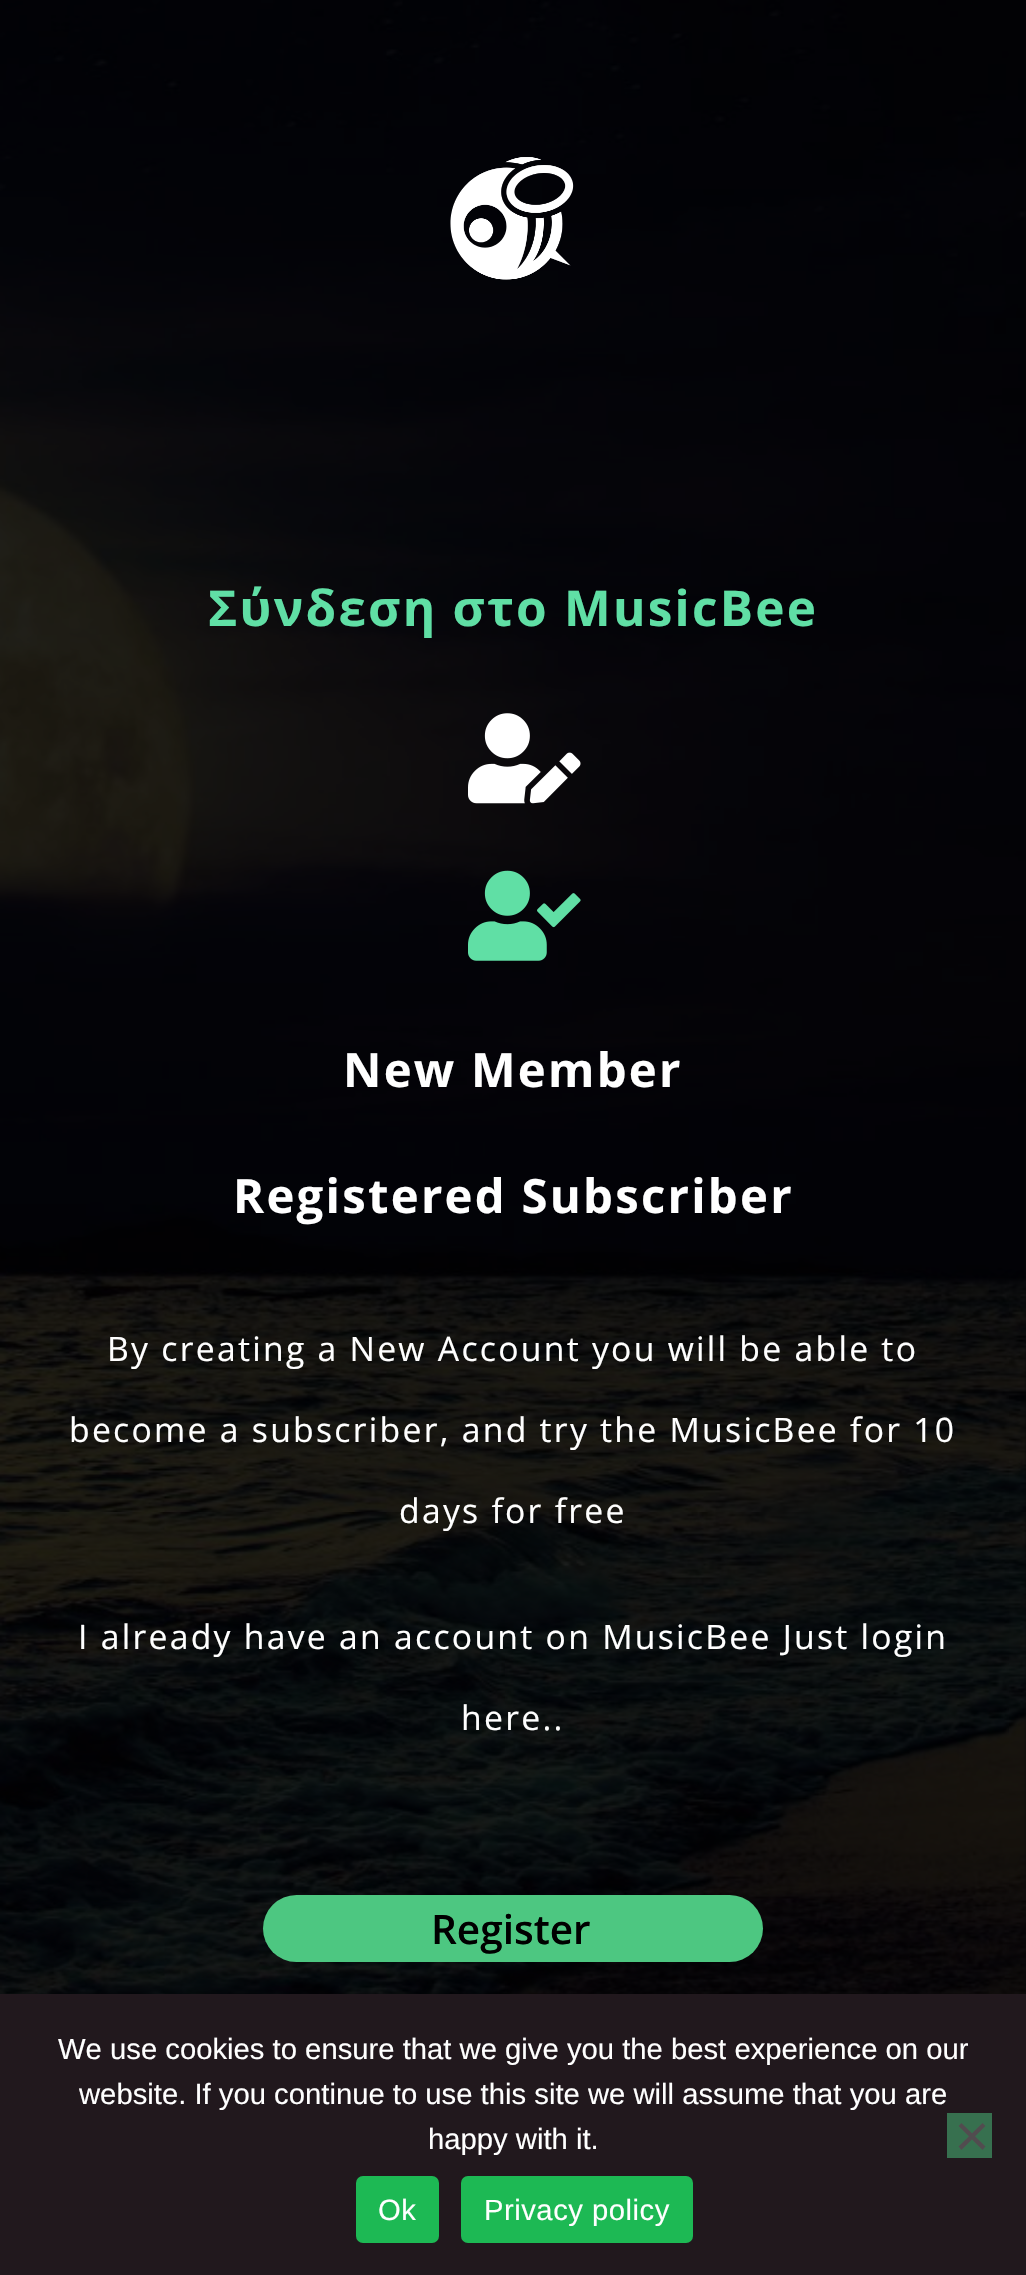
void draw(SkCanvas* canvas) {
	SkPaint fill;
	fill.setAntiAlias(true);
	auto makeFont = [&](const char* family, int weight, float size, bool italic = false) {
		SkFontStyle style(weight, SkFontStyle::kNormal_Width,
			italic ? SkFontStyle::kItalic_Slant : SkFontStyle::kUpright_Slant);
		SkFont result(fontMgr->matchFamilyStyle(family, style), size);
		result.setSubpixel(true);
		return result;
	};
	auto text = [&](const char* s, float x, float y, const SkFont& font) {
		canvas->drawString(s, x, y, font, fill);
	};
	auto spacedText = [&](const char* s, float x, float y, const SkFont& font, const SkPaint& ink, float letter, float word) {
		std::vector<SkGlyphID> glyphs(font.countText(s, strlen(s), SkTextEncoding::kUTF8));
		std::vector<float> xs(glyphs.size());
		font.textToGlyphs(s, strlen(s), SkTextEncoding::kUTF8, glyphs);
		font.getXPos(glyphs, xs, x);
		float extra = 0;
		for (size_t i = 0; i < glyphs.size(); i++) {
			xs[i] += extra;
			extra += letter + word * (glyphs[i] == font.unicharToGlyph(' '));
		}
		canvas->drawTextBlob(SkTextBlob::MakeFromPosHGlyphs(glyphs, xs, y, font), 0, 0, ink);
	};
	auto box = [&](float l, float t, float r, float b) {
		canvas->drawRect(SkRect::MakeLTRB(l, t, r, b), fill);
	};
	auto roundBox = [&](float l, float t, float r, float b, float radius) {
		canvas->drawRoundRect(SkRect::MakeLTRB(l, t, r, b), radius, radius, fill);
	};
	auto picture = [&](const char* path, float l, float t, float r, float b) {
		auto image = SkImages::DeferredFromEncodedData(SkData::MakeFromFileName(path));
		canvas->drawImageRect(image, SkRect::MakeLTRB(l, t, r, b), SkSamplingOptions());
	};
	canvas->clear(0xFFFFFFFF);
	picture("image0.png", 1024, 0, 1026, 1994);
	picture("image1.png", 0, 0, 1026, 1994);
	picture("image2.png", 450, 157, 574, 280);
	picture("image3.png", 468, 713, 581, 804);
	picture("image4.png", 468, 870, 581, 961);
	fill.setColor(0xFF4DC781);
	roundBox(263, 1895, 763, 1962, 33.5f);
	fill.setColor(0xFF21181D);
	box(0, 1994, 1026, 2275);
	fill.setColor(0xFF37704F);
	box(947, 2113, 992, 2158);
	fill.setColor(0xFF514C4F);
	canvas->drawPath(SkPathBuilder().moveTo(982.5f, 2123).lineTo(985.5f, 2126).lineTo(961.5f, 2150).lineTo(958.5f, 2146.5f).close().detach(), fill);
	canvas->drawPath(SkPathBuilder().moveTo(958.5f, 2126).lineTo(961.5f, 2123).lineTo(985.5f, 2146.5f).lineTo(982.5f, 2150).close().detach(), fill);
	fill.setColor(0xFF1DB954);
	roundBox(356, 2176, 439, 2243, 7);
	roundBox(461, 2176, 693, 2243, 7);
	auto font1 = makeFont("Open Sans", 700, 49.5f);
	fill.setColor(0xFF60DFA5);
	spacedText("Σύνδεση στο MusicBee", 208, 626, font1, fill, 2.25f, 0);
	auto font2 = makeFont("Open Sans", 700, 47.25f);
	fill.setColor(0xFFFFFFFF);
	spacedText("New Member", 343, 1087, font2, fill, 2.25f, 0);
	spacedText("Registered Subscriber", 233, 1213, font2, fill, 2.25f, 0);
	auto font3 = makeFont("Open Sans", 400, 33.75f);
	spacedText("By creating a New Account you will be able to", 107, 1361, font3, fill, 2.25f, 0);
	spacedText("become a subscriber, and try the MusicBee for 10", 69, 1442, font3, fill, 2.25f, 0);
	spacedText("days for free", 399, 1523, font3, fill, 2.25f, 0);
	spacedText("I already have an account on MusicBee Just login", 78, 1649, font3, fill, 2.25f, 0);
	spacedText("here..", 461, 1730, font3, fill, 2.25f, 0);
	auto font4 = makeFont("Open Sans", 600, 40.5f);
	fill.setColor(0xFF000000);
	text("Register", 431, 1944, font4);
	auto font5 = makeFont("Liberation Sans", 400, 29.25f);
	fill.setColor(0xFFFFFFFF);
	text("We use cookies to ensure that we give you the best experience on our", 58, 2059, font5);
	text("website. If you continue to use this site we will assume that you are", 79, 2104, font5);
	text("happy with it.", 428, 2149, font5);
	spacedText("Ok", 378, 2220, font5, fill, 0.5f, 0);
	spacedText("Privacy policy", 484, 2220, font5, fill, 0.5f, 0);
}
